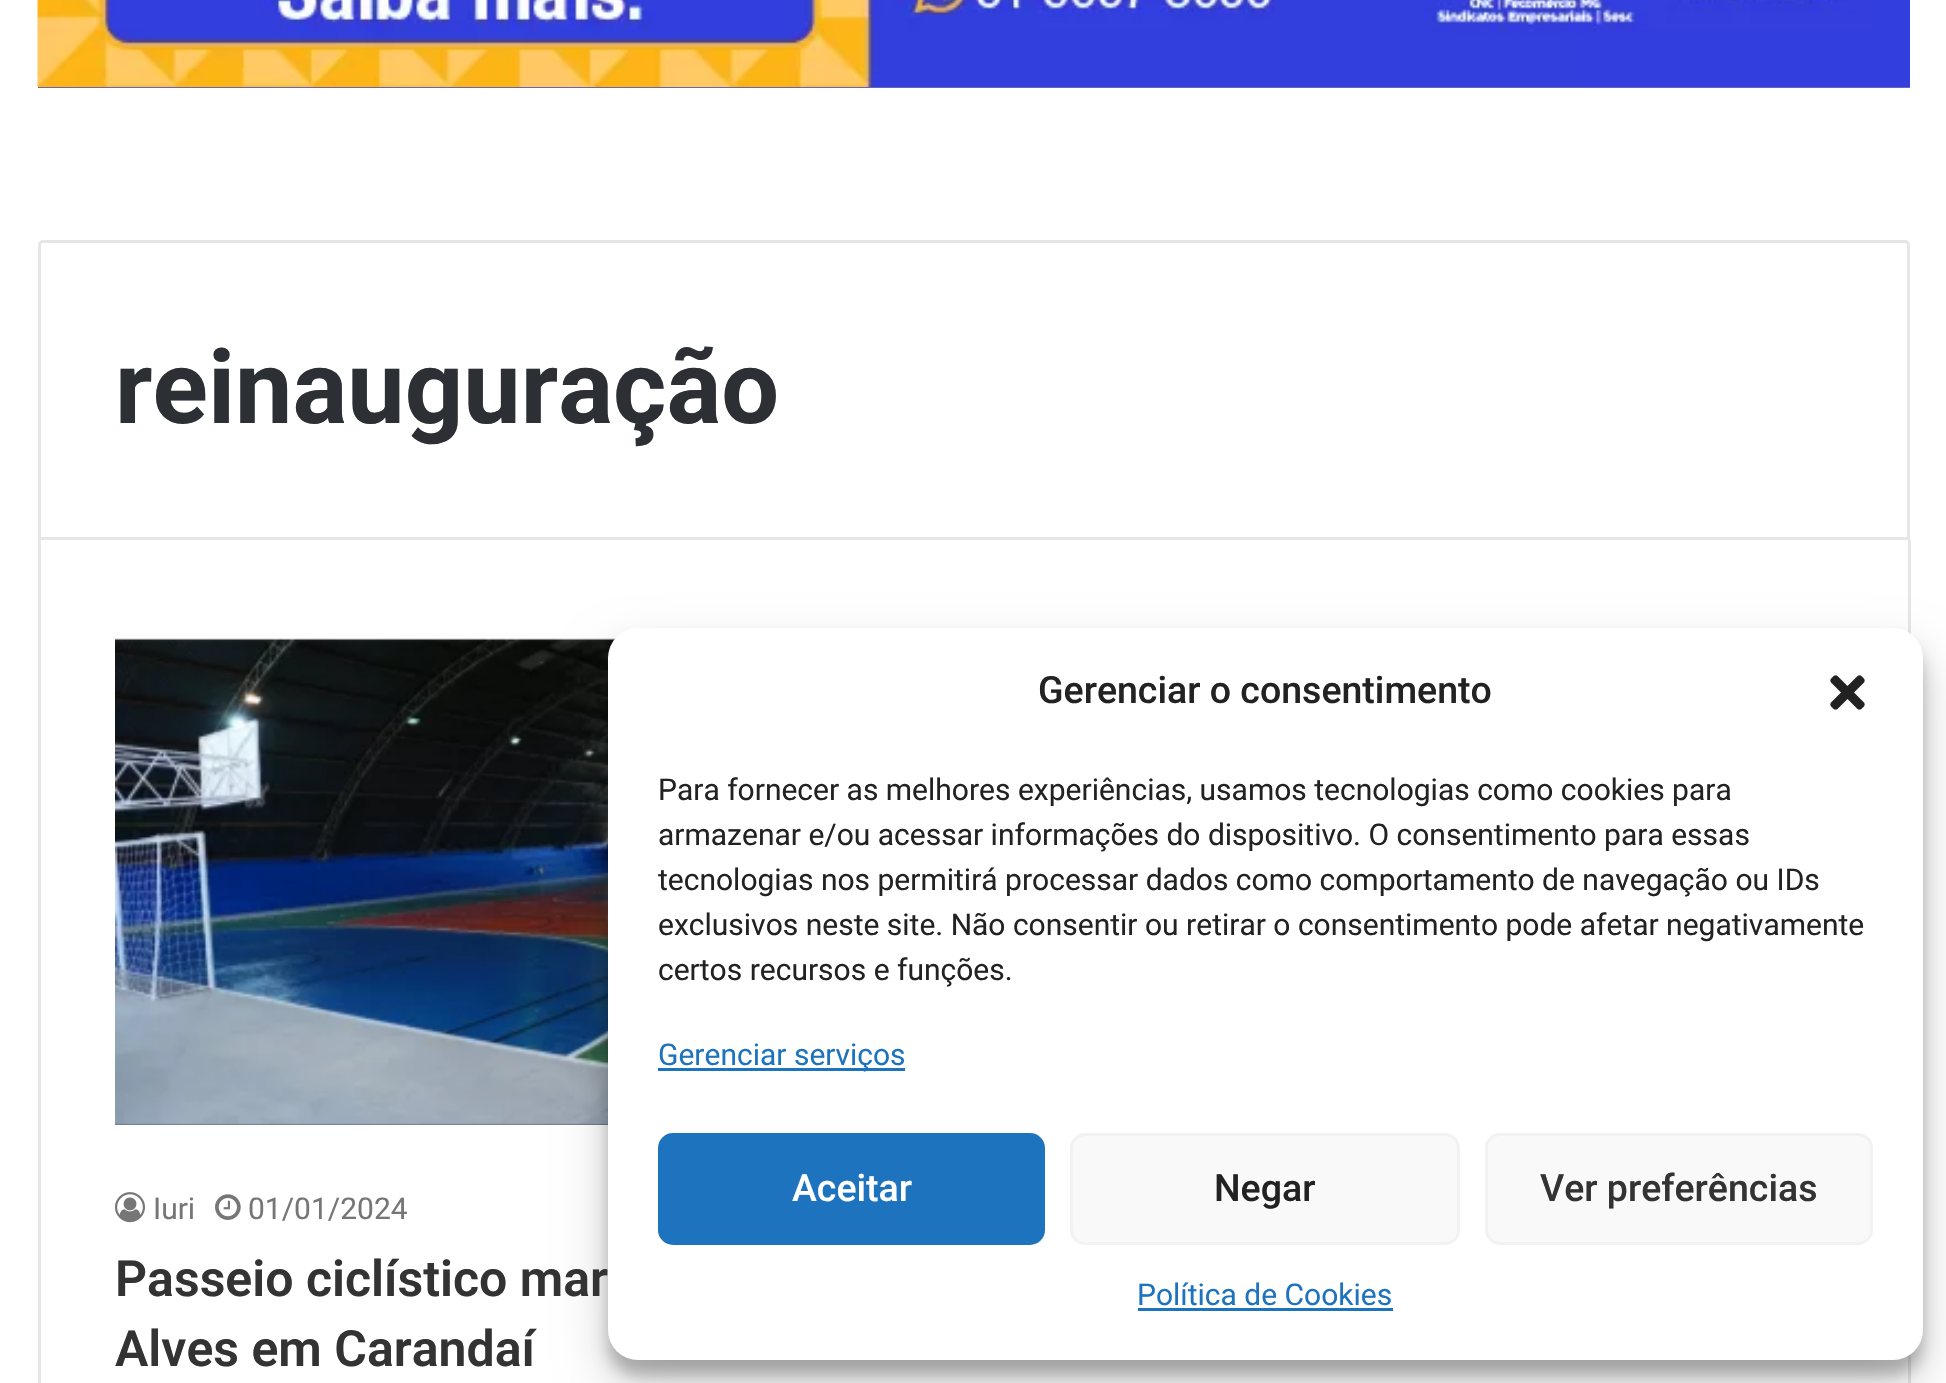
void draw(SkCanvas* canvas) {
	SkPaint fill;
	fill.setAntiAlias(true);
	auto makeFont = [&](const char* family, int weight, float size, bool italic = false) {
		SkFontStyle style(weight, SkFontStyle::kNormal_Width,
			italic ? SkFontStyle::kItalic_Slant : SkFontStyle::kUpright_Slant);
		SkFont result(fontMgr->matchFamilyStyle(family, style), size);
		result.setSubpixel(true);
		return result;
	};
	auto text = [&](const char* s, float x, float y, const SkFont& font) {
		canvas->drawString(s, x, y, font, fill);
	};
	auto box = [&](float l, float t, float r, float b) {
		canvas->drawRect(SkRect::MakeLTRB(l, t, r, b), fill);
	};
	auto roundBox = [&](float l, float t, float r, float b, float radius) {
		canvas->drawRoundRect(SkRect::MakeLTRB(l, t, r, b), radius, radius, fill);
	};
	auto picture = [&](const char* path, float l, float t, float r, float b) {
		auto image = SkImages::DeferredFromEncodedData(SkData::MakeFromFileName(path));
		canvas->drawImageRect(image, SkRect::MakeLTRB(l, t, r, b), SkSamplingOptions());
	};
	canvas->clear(0xFFFFFFFF);
	picture("image0.png", 37, 0, 1910, 87);
	fill.setColor(0xFF6864B9);
	box(38, 87, 1910, 88);
	fill.setStyle(SkPaint::kStroke_Style);
	fill.setStrokeWidth(3);
	fill.setColor(0xFFE6E6E6);
	canvas->drawPath(SkPathBuilder().moveTo(43, 241.5f).lineTo(1905, 241.5f).cubicTo(1907, 241.5f, 1908.5f, 243, 1908.5f, 245).lineTo(1908.5f, 538.5f).lineTo(39.5f, 538.5f).lineTo(39.5f, 245).cubicTo(39.5f, 243, 41, 241.5f, 43, 241.5f).close().detach(), fill);
	fill.setStyle(SkPaint::kFill_Style);
	box(1908, 540, 1911, 1383);
	box(38, 540, 41, 1383);
	fill.setColor(0xFF566677);
	box(115, 640, 614, 1125);
	picture("image1.png", 115, 638, 616, 1125);
	picture("image2.png", 115, 1192, 145, 1223);
	picture("image3.png", 215, 1194, 241, 1220);
	fill.setColor(0x3B000000);
	fill.setMaskFilter(SkMaskFilter::MakeBlur(kNormal_SkBlurStyle, 7.5f));
	canvas->drawRoundRect(SkRect::MakeLTRB(608, 643, 1923, 1375), 30, 30, fill);
	fill.setMaskFilter(nullptr);
	fill.setColor(0x30000000);
	fill.setMaskFilter(SkMaskFilter::MakeBlur(kNormal_SkBlurStyle, 25));
	canvas->drawRoundRect(SkRect::MakeLTRB(608, 653, 1923, 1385), 30, 30, fill);
	fill.setMaskFilter(nullptr);
	fill.setColor(0xFFFFFFFF);
	roundBox(608, 628, 1923, 1360, 30);
	picture("image4.png", 1830, 675, 1865, 710);
	fill.setColor(0xFF1E73BE);
	box(658, 1068, 905, 1071);
	canvas->drawRoundRect(SkRect::MakeLTRB(659.5f, 1134.5f, 1043.5f, 1243.5f), 13.5f, 13.5f, fill);
	fill.setStyle(SkPaint::kStroke_Style);
	canvas->drawRoundRect(SkRect::MakeLTRB(659.5f, 1134.5f, 1043.5f, 1243.5f), 13.5f, 13.5f, fill);
	fill.setStyle(SkPaint::kFill_Style);
	fill.setColor(0xFFF9F9F9);
	canvas->drawRoundRect(SkRect::MakeLTRB(1071.5f, 1134.5f, 1458.5f, 1243.5f), 13.5f, 13.5f, fill);
	fill.setStyle(SkPaint::kStroke_Style);
	fill.setColor(0xFFF2F2F2);
	canvas->drawRoundRect(SkRect::MakeLTRB(1071.5f, 1134.5f, 1458.5f, 1243.5f), 13.5f, 13.5f, fill);
	fill.setStyle(SkPaint::kFill_Style);
	fill.setColor(0xFFF9F9F9);
	canvas->drawRoundRect(SkRect::MakeLTRB(1486.5f, 1134.5f, 1871.5f, 1243.5f), 13.5f, 13.5f, fill);
	fill.setStyle(SkPaint::kStroke_Style);
	fill.setColor(0xFFF2F2F2);
	canvas->drawRoundRect(SkRect::MakeLTRB(1486.5f, 1134.5f, 1871.5f, 1243.5f), 13.5f, 13.5f, fill);
	fill.setStyle(SkPaint::kFill_Style);
	fill.setColor(0xFF1E73BE);
	box(1138, 1308, 1393, 1311);
	auto font1 = makeFont("Roboto", 700, 102.5f);
	fill.setColor(0xFF2C2F34);
	text("reinauguração", 115, 423, font1);
	auto font2 = makeFont("Roboto", 400, 30);
	fill.setColor(0xFF767676);
	text("Iuri", 153, 1219, font2);
	text("01/01/2024", 248, 1219, font2);
	auto font3 = makeFont("Roboto", 600, 50);
	fill.setColor(0xFF333333);
	text("Passeio ciclístico mar", 115, 1296, font3);
	text("Alves em Carandaí", 115, 1366, font3);
	auto font4 = makeFont("Roboto", 500, 37.5f);
	fill.setColor(0xFF222222);
	text("Gerenciar o consentimento", 1038, 703, font4);
	text("Para fornecer as melhores experiências, usamos tecnologias como cookies para", 658, 800, font2);
	text("armazenar e/ou acessar informações do dispositivo. O consentimento para essas", 658, 845, font2);
	canvas->save();
	canvas->clipRect(SkRect::MakeLTRB(658, 768, 1873, 1005));
	text("tecnologias nos permitirá processar dados como comportamento de navegação ou IDs", 658, 890, font2);
	canvas->restore();
	text("exclusivos neste site. Não consentir ou retirar o consentimento pode afetar negativamente", 658, 935, font2);
	text("certos recursos e funções.", 658, 980, font2);
	fill.setColor(0xFF1E73BE);
	text("Gerenciar serviços", 658, 1065, font2);
	fill.setColor(0xFFFFFFFF);
	text("Aceitar", 792, 1201, font4);
	fill.setColor(0xFF222222);
	text("Negar", 1214, 1201, font4);
	fill.setColor(0xFF333333);
	text("Ver preferências", 1540, 1201, font4);
	fill.setColor(0xFF1E73BE);
	text("Política de Cookies", 1137, 1305, font2);
}
